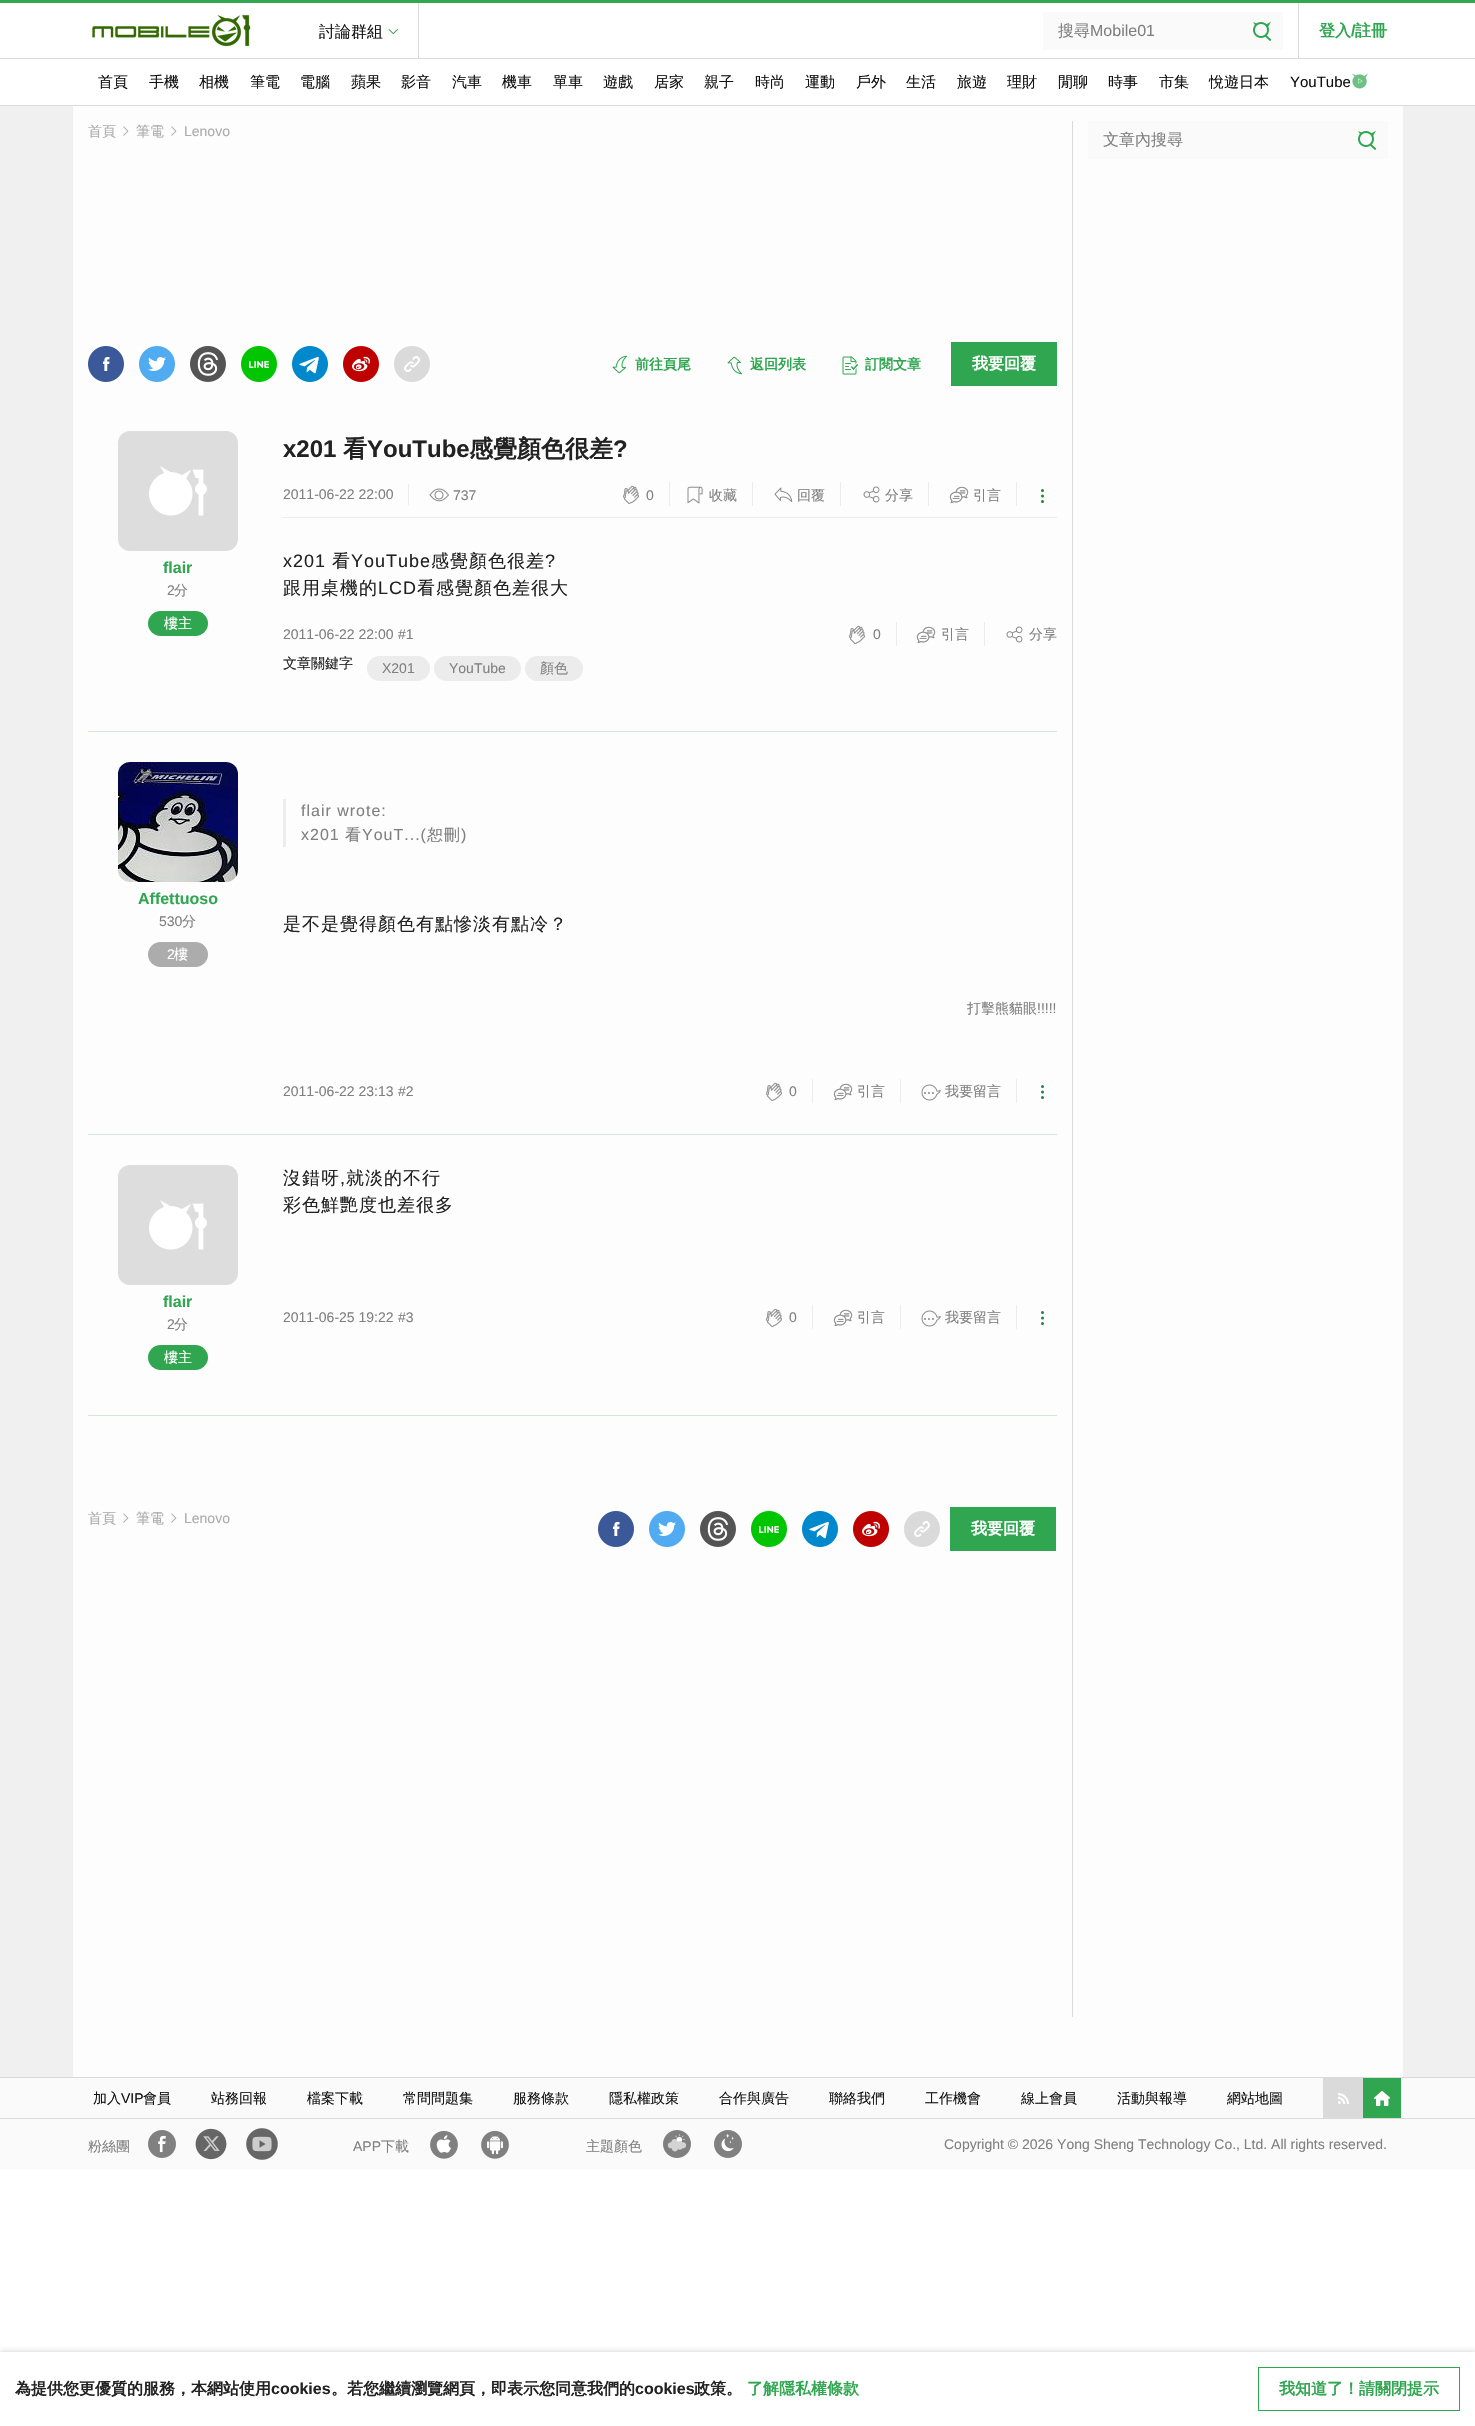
void draw(SkCanvas* canvas) {
	SkPaint fill;
	fill.setAntiAlias(true);
	auto makeFont = [&](const char* family, int weight, float size, bool italic = false) {
		SkFontStyle style(weight, SkFontStyle::kNormal_Width,
			italic ? SkFontStyle::kItalic_Slant : SkFontStyle::kUpright_Slant);
		SkFont result(fontMgr->matchFamilyStyle(family, style), size);
		result.setSubpixel(true);
		return result;
	};
	auto text = [&](const char* s, float x, float y, const SkFont& font) {
		canvas->drawString(s, x, y, font, fill);
	};
	auto spacedText = [&](const char* s, float x, float y, const SkFont& font, const SkPaint& ink, float letter, float word) {
		std::vector<SkGlyphID> glyphs(font.countText(s, strlen(s), SkTextEncoding::kUTF8));
		std::vector<float> xs(glyphs.size());
		font.textToGlyphs(s, strlen(s), SkTextEncoding::kUTF8, glyphs);
		font.getXPos(glyphs, xs, x);
		float extra = 0;
		for (size_t i = 0; i < glyphs.size(); i++) {
			xs[i] += extra;
			extra += letter + word * (glyphs[i] == font.unicharToGlyph(' '));
		}
		canvas->drawTextBlob(SkTextBlob::MakeFromPosHGlyphs(glyphs, xs, y, font), 0, 0, ink);
	};
	auto box = [&](float l, float t, float r, float b) {
		canvas->drawRect(SkRect::MakeLTRB(l, t, r, b), fill);
	};
	auto roundBox = [&](float l, float t, float r, float b, float radius) {
		canvas->drawRoundRect(SkRect::MakeLTRB(l, t, r, b), radius, radius, fill);
	};
	auto picture = [&](const char* path, float l, float t, float r, float b) {
		auto image = SkImages::DeferredFromEncodedData(SkData::MakeFromFileName(path));
		canvas->drawImageRect(image, SkRect::MakeLTRB(l, t, r, b), SkSamplingOptions());
	};
	canvas->clear(0xFFFFFFFF);
	fill.setColor(0xFF30A651);
	box(0, 0, 1475, 3);
	fill.setColor(0xFFDADADA);
	box(0, 58, 1475, 59);
	picture("image0.png", 92, 14, 251, 47);
	box(418, 3, 419, 58);
	picture("image1.png", 388, 29, 398, 35);
	fill.setColor(0xFFFAFAFA);
	box(1043, 12, 1283, 50);
	picture("image2.png", 1253, 21, 1272, 41);
	fill.setColor(0xFFDADADA);
	box(1298, 3, 1299, 58);
	picture("image3.png", 1352, 73, 1368, 89);
	box(0, 105, 1475, 106);
	fill.setColor(0xFFF0F0F0);
	box(0, 106, 1475, 2077);
	fill.setColor(0xFFFDFDFD);
	box(73, 106, 1403, 2077);
	fill.setColor(0xFFDADADA);
	box(1072, 121, 1073, 2017);
	picture("image4.png", 123, 126, 129, 136);
	picture("image4.png", 171, 126, 177, 136);
	picture("image5.png", 88, 346, 124, 382);
	picture("image6.png", 139, 346, 175, 382);
	picture("image7.png", 190, 346, 226, 382);
	picture("image8.png", 241, 346, 277, 382);
	picture("image9.png", 292, 346, 328, 382);
	picture("image10.png", 343, 346, 379, 382);
	picture("image11.png", 394, 346, 430, 382);
	picture("image12.png", 612, 355, 627, 374);
	picture("image13.png", 727, 356, 742, 375);
	picture("image14.png", 842, 356, 859, 375);
	fill.setColor(0xFF30A651);
	box(951, 342, 1057, 386);
	fill.setColor(0xFFCEEAD5);
	box(88, 731, 1057, 732);
	picture("image15.png", 118, 431, 238, 551);
	fill.setColor(0xFF30A651);
	roundBox(148, 611, 208, 636, 12.5f);
	fill.setColor(0xFFECECEC);
	box(408, 484, 409, 505);
	picture("image16.png", 429, 488, 449, 502);
	box(669, 482, 670, 506);
	picture("image17.png", 622, 485, 639, 505);
	box(752, 482, 753, 506);
	picture("image18.png", 687, 486, 703, 504);
	box(840, 482, 841, 506);
	picture("image19.png", 774, 487, 793, 502);
	box(928, 482, 929, 506);
	picture("image20.png", 863, 486, 880, 503);
	box(1016, 482, 1017, 506);
	picture("image21.png", 949, 486, 969, 504);
	fill.setColor(0xFF23803D);
	canvas->drawCircle(1042.5f, 490.6f, 1.5f, fill);
	canvas->drawCircle(1042.5f, 496, 1.5f, fill);
	canvas->drawCircle(1042.5f, 501.4f, 1.5f, fill);
	fill.setColor(0xFFECECEC);
	box(283, 517, 1057, 518);
	box(896, 622, 897, 646);
	picture("image17.png", 848, 625, 865, 645);
	box(984, 622, 985, 646);
	picture("image21.png", 916, 626, 936, 644);
	picture("image20.png", 1006, 626, 1023, 643);
	roundBox(367, 656, 430, 681, 12.5f);
	roundBox(434, 656, 521, 681, 12.5f);
	roundBox(525, 656, 583, 681, 12.5f);
	fill.setColor(0xFFCEEAD5);
	box(88, 1134, 1057, 1135);
	picture("image22.png", 118, 762, 238, 882);
	fill.setColor(0xFFACACAC);
	roundBox(148, 942, 208, 967, 12.5f);
	fill.setColor(0xFFECECEC);
	box(283, 799, 286, 847);
	box(812, 1079, 813, 1103);
	picture("image17.png", 765, 1082, 782, 1102);
	box(900, 1079, 901, 1103);
	picture("image21.png", 833, 1083, 853, 1101);
	box(1016, 1079, 1017, 1103);
	picture("image23.png", 921, 1084, 941, 1101);
	fill.setColor(0xFF23803D);
	canvas->drawCircle(1042.5f, 1086.6f, 1.5f, fill);
	canvas->drawCircle(1042.5f, 1092, 1.5f, fill);
	canvas->drawCircle(1042.5f, 1097.4f, 1.5f, fill);
	fill.setColor(0xFFCEEAD5);
	box(88, 1415, 1057, 1416);
	picture("image15.png", 118, 1165, 238, 1285);
	fill.setColor(0xFF30A651);
	roundBox(148, 1345, 208, 1370, 12.5f);
	fill.setColor(0xFFECECEC);
	box(812, 1305, 813, 1329);
	picture("image17.png", 765, 1308, 782, 1328);
	box(900, 1305, 901, 1329);
	picture("image21.png", 833, 1309, 853, 1327);
	box(1016, 1305, 1017, 1329);
	picture("image23.png", 921, 1310, 941, 1327);
	fill.setColor(0xFF23803D);
	canvas->drawCircle(1042.5f, 1312.6f, 1.5f, fill);
	canvas->drawCircle(1042.5f, 1318, 1.5f, fill);
	canvas->drawCircle(1042.5f, 1323.4f, 1.5f, fill);
	picture("image4.png", 123, 1513, 129, 1523);
	picture("image4.png", 171, 1513, 177, 1523);
	picture("image5.png", 598, 1511, 634, 1547);
	picture("image6.png", 649, 1511, 685, 1547);
	picture("image7.png", 700, 1511, 736, 1547);
	picture("image8.png", 751, 1511, 787, 1547);
	picture("image9.png", 802, 1511, 838, 1547);
	picture("image10.png", 853, 1511, 889, 1547);
	picture("image11.png", 904, 1511, 940, 1547);
	fill.setColor(0xFF30A651);
	box(950, 1507, 1056, 1551);
	fill.setColor(0xFFFAFAFA);
	box(1088, 121, 1388, 159);
	picture("image2.png", 1358, 130, 1377, 150);
	canvas->save();
	canvas->clipRect(SkRect::MakeLTRB(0, 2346, 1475, 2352));
	fill.setColor(0xFFDADADA);
	fill.setMaskFilter(SkMaskFilter::MakeBlur(kNormal_SkBlurStyle, 2.5f));
	canvas->drawRect(SkRect::MakeLTRB(0, 2351, 1475, 2425), fill);
	fill.setMaskFilter(nullptr);
	canvas->restore();
	fill.setStyle(SkPaint::kStroke_Style);
	fill.setStrokeWidth(1);
	fill.setColor(0xFF30A651);
	canvas->drawRect(SkRect::MakeLTRB(1258.5f, 2367.5f, 1459.5f, 2410.5f), fill);
	fill.setStyle(SkPaint::kFill_Style);
	fill.setColor(0xFFFAFAFA);
	box(0, 2078, 1475, 2169);
	fill.setColor(0xFFDADADA);
	box(0, 2077, 1475, 2078);
	box(0, 2118, 1475, 2119);
	picture("image24.png", 1323, 2078, 1363, 2118);
	picture("image25.png", 1363, 2078, 1401, 2118);
	picture("image26.png", 148, 2130, 176, 2158);
	picture("image27.png", 195, 2128, 227, 2160);
	picture("image28.png", 246, 2128, 278, 2160);
	picture("image29.png", 430, 2130, 458, 2159);
	picture("image30.png", 481, 2130, 509, 2159);
	picture("image31.png", 663, 2130, 691, 2158);
	picture("image32.png", 714, 2130, 742, 2158);
	auto font1 = makeFont("WenQuanYi Zen Hei", 500, 16);
	fill.setColor(0xFF111111);
	text("討論群組", 319, 37, font1);
	fill.setColor(0xFF808080);
	text("搜尋", 1058, 36, font1);
	auto font2 = makeFont("Liberation Sans", 400, 16);
	text("Mobile01", 1090, 36, font2);
	auto font3 = makeFont("WenQuanYi Zen Hei", 700, 16);
	fill.setColor(0xFF30A651);
	text("登入", 1319, 36, font3);
	auto font4 = makeFont("Liberation Sans", 700, 16);
	text("/", 1351, 36, font4);
	text("註冊", 1355, 36, font3);
	auto font5 = makeFont("WenQuanYi Zen Hei", 500, 15);
	fill.setColor(0xFF111111);
	text("首頁", 98, 87, font5);
	text("手機", 149, 87, font5);
	text("相機", 199, 87, font5);
	text("筆電", 250, 87, font5);
	text("電腦", 300, 87, font5);
	text("蘋果", 351, 87, font5);
	text("影音", 401, 87, font5);
	text("汽車", 452, 87, font5);
	text("機車", 502, 87, font5);
	text("單車", 553, 87, font5);
	text("遊戲", 603, 87, font5);
	text("居家", 654, 87, font5);
	text("親子", 704, 87, font5);
	text("時尚", 755, 87, font5);
	text("運動", 805, 87, font5);
	text("戶外", 856, 87, font5);
	text("生活", 906, 87, font5);
	text("旅遊", 957, 87, font5);
	text("理財", 1007, 87, font5);
	text("閒聊", 1058, 87, font5);
	text("時事", 1108, 87, font5);
	text("市集", 1159, 87, font5);
	text("悅遊日本", 1209, 87, font5);
	auto font6 = makeFont("Liberation Sans", 400, 15);
	text("YouTube", 1290, 87, font6);
	auto font7 = makeFont("WenQuanYi Zen Hei", 500, 14);
	fill.setColor(0xFFACACAC);
	text("首頁", 88, 136, font7);
	text("筆電", 136, 136, font7);
	auto font8 = makeFont("Liberation Sans", 400, 14);
	text("Lenovo", 184, 136, font8);
	auto font9 = makeFont("WenQuanYi Zen Hei", 700, 14);
	fill.setColor(0xFF30A651);
	text("前往頁尾", 635, 369, font9);
	text("返回列表", 750, 369, font9);
	text("訂閱文章", 865, 369, font9);
	fill.setColor(0xFFFFFFFF);
	text("我要回覆", 972, 369, font3);
	fill.setColor(0xFF30A651);
	text("flair", 163, 573, font4);
	fill.setColor(0xFF808080);
	text("2", 167, 595, font8);
	text("分", 174, 595, font7);
	fill.setColor(0xFFFFFFFF);
	text("樓主", 164, 628, font7);
	auto font10 = makeFont("Liberation Sans", 700, 24);
	fill.setColor(0xFF222222);
	text("x201", 283, 457, font10);
	auto font11 = makeFont("WenQuanYi Zen Hei", 700, 24);
	text("看", 343, 457, font11);
	text("YouTube", 367, 457, font10);
	text("感覺顏色很差", 469, 457, font11);
	text("?", 613, 457, font10);
	fill.setColor(0xFF808080);
	text("2011-06-22 22:00", 283, 499, font8);
	text("737", 453, 500, font8);
	text("0", 646, 500, font8);
	text("收藏", 709, 500, font7);
	text("回覆", 797, 500, font7);
	text("分享", 885, 500, font7);
	text("引言", 973, 500, font7);
	auto font12 = makeFont("Liberation Sans", 400, 18);
	fill.setColor(0xFF222222);
	spacedText("x201", 283, 567, font12, fill, 1, 0);
	auto font13 = makeFont("WenQuanYi Zen Hei", 500, 18);
	spacedText("看", 332, 567, font13, fill, 1, 0);
	spacedText("YouTube", 351, 567, font12, fill, 1, 0);
	spacedText("感覺顏色很差", 431, 567, font13, fill, 1, 0);
	spacedText("?", 545, 567, font12, fill, 1, 0);
	spacedText("跟用桌機的", 283, 594, font13, fill, 1, 0);
	spacedText("LCD", 378, 594, font12, fill, 1, 0);
	spacedText("看感覺顏色差很大", 417, 594, font13, fill, 1, 0);
	fill.setColor(0xFF808080);
	text("2011-06-22 22:00", 283, 639, font8);
	text("#1", 398, 639, font8);
	text("0", 873, 639, font8);
	text("引言", 941, 639, font7);
	text("分享", 1029, 639, font7);
	fill.setColor(0xFF222222);
	text("文章關鍵字", 283, 668, font7);
	fill.setColor(0xFF808080);
	text("X201", 382, 673, font8);
	text("YouTube", 449, 673, font8);
	text("顏色", 540, 673, font7);
	fill.setColor(0xFF30A651);
	text("Affettuoso", 138, 904, font4);
	fill.setColor(0xFF808080);
	text("530", 159, 926, font8);
	text("分", 182, 926, font7);
	fill.setColor(0xFFFFFFFF);
	text("2", 167, 959, font8);
	text("樓", 174, 959, font7);
	fill.setColor(0xFF808080);
	spacedText("flair wrote:", 301, 816, font2, fill, 1, 0);
	spacedText("x201", 301, 840, font2, fill, 1, 0);
	spacedText("看", 345, 840, font1, fill, 1, 0);
	spacedText("YouT...(", 362, 840, font2, fill, 1, 0);
	spacedText("恕刪", 427, 840, font1, fill, 1, 0);
	spacedText(")", 461, 840, font2, fill, 1, 0);
	fill.setColor(0xFF222222);
	spacedText("是不是覺得顏色有點慘淡有點冷？", 283, 930, font13, fill, 1, 0);
	fill.setColor(0xFF808080);
	text("打擊熊貓眼", 967, 1013, font7);
	text("!!!!!", 1037, 1013, font8);
	text("2011-06-22 23:13", 283, 1096, font8);
	text("#2", 398, 1096, font8);
	text("0", 789, 1096, font8);
	text("引言", 857, 1096, font7);
	text("我要留言", 945, 1096, font7);
	fill.setColor(0xFF30A651);
	text("flair", 163, 1307, font4);
	fill.setColor(0xFF808080);
	text("2", 167, 1329, font8);
	text("分", 174, 1329, font7);
	fill.setColor(0xFFFFFFFF);
	text("樓主", 164, 1362, font7);
	fill.setColor(0xFF222222);
	spacedText("沒錯呀", 283, 1184, font13, fill, 1, 0);
	spacedText(",", 340, 1184, font12, fill, 1, 0);
	spacedText("就淡的不行", 346, 1184, font13, fill, 1, 0);
	spacedText("彩色鮮艷度也差很多", 283, 1211, font13, fill, 1, 0);
	fill.setColor(0xFF808080);
	text("2011-06-25 19:22", 283, 1322, font8);
	text("#3", 398, 1322, font8);
	text("0", 789, 1322, font8);
	text("引言", 857, 1322, font7);
	text("我要留言", 945, 1322, font7);
	fill.setColor(0xFFACACAC);
	text("首頁", 88, 1523, font7);
	text("筆電", 136, 1523, font7);
	text("Lenovo", 184, 1523, font8);
	fill.setColor(0xFFFFFFFF);
	text("我要回覆", 971, 1534, font3);
	fill.setColor(0xFF808080);
	text("文章內搜尋", 1103, 145, font1);
	fill.setColor(0xFF222222);
	text("為提供您更優質的服務，本網站使用", 15, 2394, font3);
	text("cookies", 271, 2394, font4);
	text("。若您繼續瀏覽網頁，即表示您同意我們的", 331, 2394, font3);
	text("cookies", 635, 2394, font4);
	text("政策。", 694, 2394, font3);
	fill.setColor(0xFF30A651);
	text("了解隱私權條款", 747, 2394, font3);
	text("我知道了！請關閉提示", 1279, 2394, font3);
	fill.setColor(0xFF111111);
	text("加入", 93, 2103, font7);
	text("VIP", 121, 2103, font8);
	text("會員", 143, 2103, font7);
	text("站務回報", 211, 2103, font7);
	text("檔案下載", 307, 2103, font7);
	text("常問問題集", 403, 2103, font7);
	text("服務條款", 513, 2103, font7);
	text("隱私權政策", 609, 2103, font7);
	text("合作與廣告", 719, 2103, font7);
	text("聯絡我們", 829, 2103, font7);
	text("工作機會", 925, 2103, font7);
	text("線上會員", 1021, 2103, font7);
	text("活動與報導", 1117, 2103, font7);
	text("網站地圖", 1227, 2103, font7);
	fill.setColor(0xFF808080);
	text("粉絲團", 88, 2151, font7);
	text("APP", 353, 2151, font8);
	text("下載", 381, 2151, font7);
	text("主題顏色", 586, 2151, font7);
	text("Copyright © 2026 Yong Sheng Technology Co., Ltd. All rights reserved.", 944, 2149, font8);
}
